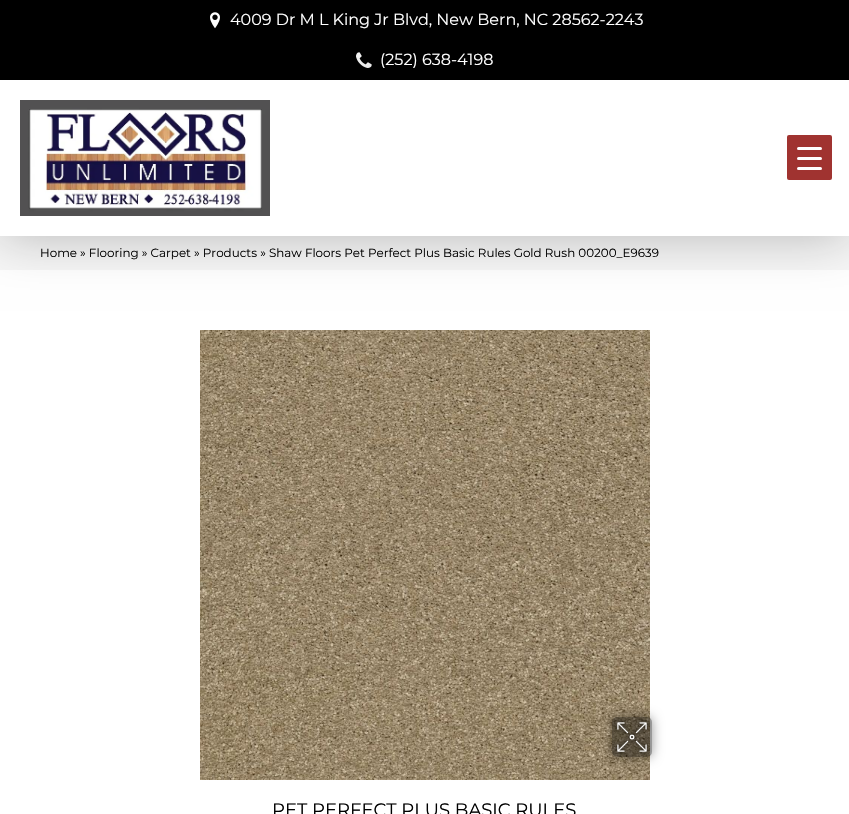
void draw(SkCanvas* canvas) {
	SkPaint fill;
	fill.setAntiAlias(true);
	auto makeFont = [&](const char* family, int weight, float size, bool italic = false) {
		SkFontStyle style(weight, SkFontStyle::kNormal_Width,
			italic ? SkFontStyle::kItalic_Slant : SkFontStyle::kUpright_Slant);
		SkFont result(fontMgr->matchFamilyStyle(family, style), size);
		result.setSubpixel(true);
		return result;
	};
	auto text = [&](const char* s, float x, float y, const SkFont& font) {
		canvas->drawString(s, x, y, font, fill);
	};
	auto box = [&](float l, float t, float r, float b) {
		canvas->drawRect(SkRect::MakeLTRB(l, t, r, b), fill);
	};
	auto roundBox = [&](float l, float t, float r, float b, float radius) {
		canvas->drawRoundRect(SkRect::MakeLTRB(l, t, r, b), radius, radius, fill);
	};
	auto picture = [&](const char* path, float l, float t, float r, float b) {
		auto image = SkImages::DeferredFromEncodedData(SkData::MakeFromFileName(path));
		canvas->drawImageRect(image, SkRect::MakeLTRB(l, t, r, b), SkSamplingOptions());
	};
	canvas->clear(0xFFFFFFFF);
	fill.setColor(0xFF000000);
	box(0, 0, 849, 80);
	picture("image1.png", 210, 12, 220, 29);
	picture("image2.png", 356, 52, 372, 68);
	fill.setColor(0xFFF7F7F7);
	box(0, 236, 849, 270);
	canvas->save();
	canvas->clipPath(SkPathBuilder(SkPathFillType::kEvenOdd).moveTo(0, 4).lineTo(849, 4).lineTo(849, 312).lineTo(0, 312).close().moveTo(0, 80).lineTo(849, 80).lineTo(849, 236).lineTo(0, 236).close().detach(), true);
	fill.setColor(0x45000000);
	fill.setMaskFilter(SkMaskFilter::MakeBlur(kNormal_SkBlurStyle, 25));
	canvas->drawRect(SkRect::MakeLTRB(0, 80, 849, 236), fill);
	fill.setMaskFilter(nullptr);
	canvas->restore();
	picture("image0.png", 20, 100, 270, 216);
	picture("image3.png", 200, 330, 650, 780);
	canvas->save();
	canvas->clipPath(SkPathBuilder(SkPathFillType::kEvenOdd).moveTo(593, 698).lineTo(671, 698).lineTo(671, 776).lineTo(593, 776).close().moveTo(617, 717).lineTo(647, 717).cubicTo(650, 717, 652, 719, 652, 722).lineTo(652, 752).cubicTo(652, 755, 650, 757, 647, 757).lineTo(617, 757).cubicTo(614, 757, 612, 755, 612, 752).lineTo(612, 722).cubicTo(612, 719, 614, 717, 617, 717).close().detach(), true);
	fill.setColor(0x69000000);
	fill.setMaskFilter(SkMaskFilter::MakeBlur(kNormal_SkBlurStyle, 6));
	canvas->drawRoundRect(SkRect::MakeLTRB(612, 717, 652, 757), 5, 5, fill);
	fill.setMaskFilter(nullptr);
	canvas->restore();
	fill.setColor(0x66000000);
	roundBox(612, 717, 652, 757, 5);
	picture("image4.png", 614, 719, 651, 755);
	fill.setColor(0xFFA03330);
	roundBox(787, 135, 832, 180, 2);
	fill.setColor(0xFFFFFFFF);
	roundBox(797, 157, 822, 160, 1.5f);
	roundBox(797, 147, 822, 150, 1.5f);
	roundBox(797, 167, 822, 170, 1.5f);
	auto font1 = makeFont("Montserrat", 400, 16);
	text("4009 Dr M L King Jr Blvd, New Bern, NC 28562-2243", 230, 25, font1);
	text("(252) 638-4198", 380, 65, font1);
	auto font2 = makeFont("Montserrat", 400, 11.9f);
	fill.setColor(0xFF000000);
	text("Home » Flooring » Carpet » Products » Shaw Floors Pet Perfect Plus Basic Rules Gold Rush 00200_E9639", 40, 257, font2);
	auto font3 = makeFont("Montserrat", 400, 18);
	text("PET PERFECT PLUS BASIC RULES", 272, 816, font3);
}
